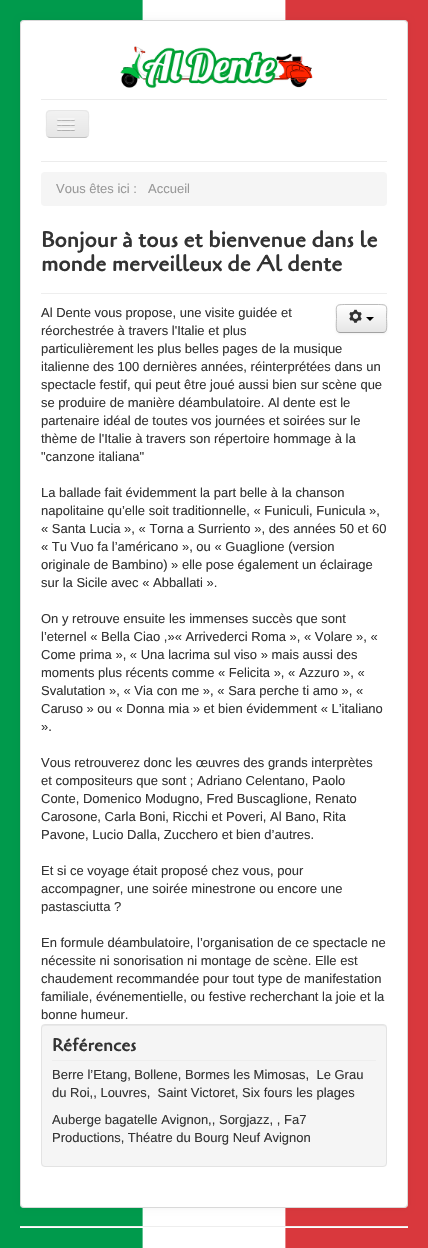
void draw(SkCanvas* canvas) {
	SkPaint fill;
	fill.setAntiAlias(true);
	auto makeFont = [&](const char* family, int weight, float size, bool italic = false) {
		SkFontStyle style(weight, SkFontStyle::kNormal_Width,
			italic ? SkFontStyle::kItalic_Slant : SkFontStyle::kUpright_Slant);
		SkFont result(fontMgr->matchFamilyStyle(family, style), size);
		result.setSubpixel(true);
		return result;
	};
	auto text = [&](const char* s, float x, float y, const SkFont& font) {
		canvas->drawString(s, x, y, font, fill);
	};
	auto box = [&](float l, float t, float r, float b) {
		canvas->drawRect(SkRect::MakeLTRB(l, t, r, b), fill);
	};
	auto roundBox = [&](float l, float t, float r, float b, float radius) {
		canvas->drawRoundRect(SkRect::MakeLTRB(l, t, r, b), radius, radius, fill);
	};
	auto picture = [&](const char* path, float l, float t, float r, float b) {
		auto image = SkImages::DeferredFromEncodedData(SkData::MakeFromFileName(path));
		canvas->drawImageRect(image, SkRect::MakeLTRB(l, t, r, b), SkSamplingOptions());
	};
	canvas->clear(0xFFFFFFFF);
	picture("image0.png", 0, 0, 428, 1248);
	fill.setColor(0x0D000000);
	fill.setMaskFilter(SkMaskFilter::MakeBlur(kNormal_SkBlurStyle, 3));
	canvas->drawRoundRect(SkRect::MakeLTRB(20, 20, 408, 1208), 4, 4, fill);
	fill.setMaskFilter(nullptr);
	fill.setColor(0xFFFFFFFF);
	roundBox(20, 20, 408, 1208, 4);
	fill.setStyle(SkPaint::kStroke_Style);
	fill.setStrokeWidth(1);
	fill.setColor(0x26000000);
	canvas->drawRoundRect(SkRect::MakeLTRB(20.5f, 20.5f, 407.5f, 1207.5f), 3.5f, 3.5f, fill);
	picture("image1.png", 120, 46, 313, 89);
	fill.setStyle(SkPaint::kFill_Style);
	fill.setColor(0xFFECECEC);
	box(41, 99, 387, 100);
	box(41, 161, 387, 162);
	fill.setColor(0xFFEDEDED);
	roundBox(46, 110, 89, 138, 4);
	canvas->save();
	canvas->clipPath(SkPathBuilder().moveTo(50, 110).lineTo(85, 110).cubicTo(87, 110, 89, 112, 89, 114).lineTo(89, 134).cubicTo(89, 136, 87, 138, 85, 138).lineTo(50, 138).cubicTo(48, 138, 46, 136, 46, 134).lineTo(46, 114).cubicTo(46, 112, 48, 110, 50, 110).close().detach(), true);
	{
		const SkColor colors[] = {0xFFF2F2F2, 0xFFE6E6E6};
		const float stops[] = {0, 1};
		const SkPoint ends[] = {{68, 111}, {68, 137}};
		fill.setShader(SkGradientShader::MakeLinear(ends, colors, stops, 2, SkTileMode::kClamp));
		fill.setAlpha(255);
	}
	box(46, 111, 89, 137);
	canvas->restore();
	fill.setStyle(SkPaint::kStroke_Style);
	fill.setShader(nullptr);
	fill.setColor(0xFFBFBFBF);
	canvas->drawPath(SkPathBuilder().moveTo(87.5f, 136.5f).cubicTo(87, 137, 86, 137.5f, 85, 137.5f).lineTo(50, 137.5f).cubicTo(49, 137.5f, 48, 137, 47.5f, 136.5f).detach(), fill);
	fill.setColor(0xFFE6E6E6);
	canvas->drawPath(SkPathBuilder().moveTo(47.5f, 136.5f).cubicTo(45.5f, 134, 46.5f, 126.5f, 46.5f, 124).cubicTo(46.5f, 112, 44, 110.5f, 56, 110.5f).lineTo(79, 110.5f).cubicTo(91, 110.5f, 88.5f, 112, 88.5f, 124).cubicTo(88.5f, 126.5f, 89.5f, 134, 87.5f, 136.5f).detach(), fill);
	fill.setStyle(SkPaint::kFill_Style);
	fill.setColor(0xFFB3B3B3);
	canvas->drawPath(SkPathBuilder().moveTo(57, 119.5f).cubicTo(56, 121.5f, 60.5f, 121, 60.5f, 121).lineTo(71.5f, 121).cubicTo(71.5f, 121, 76, 121.5f, 75, 119.5f).cubicTo(74, 120.5f, 67.5f, 120, 66, 120).cubicTo(64.5f, 120, 58, 120.5f, 57, 119.5f).close().detach(), fill);
	fill.setColor(0xFFF5F5F5);
	roundBox(57, 118, 75, 120, 1);
	fill.setColor(0xFFB0B0B0);
	canvas->drawPath(SkPathBuilder().moveTo(57, 124.5f).cubicTo(56, 126.5f, 60.5f, 126, 60.5f, 126).lineTo(71.5f, 126).cubicTo(71.5f, 126, 76, 126.5f, 75, 124.5f).cubicTo(74, 125.5f, 67.5f, 125, 66, 125).cubicTo(64.5f, 125, 58, 125.5f, 57, 124.5f).close().detach(), fill);
	fill.setColor(0xFFF5F5F5);
	roundBox(57, 123, 75, 125, 1);
	fill.setColor(0xFFAFAFAF);
	canvas->drawPath(SkPathBuilder().moveTo(57, 129.5f).cubicTo(56, 131.5f, 60.5f, 131, 60.5f, 131).lineTo(71.5f, 131).cubicTo(71.5f, 131, 76, 131.5f, 75, 129.5f).cubicTo(74, 130.5f, 67.5f, 130, 66, 130).cubicTo(64.5f, 130, 58, 130.5f, 57, 129.5f).close().detach(), fill);
	fill.setColor(0xFFF5F5F5);
	roundBox(57, 128, 75, 130, 1);
	roundBox(41, 172, 387, 206, 4);
	fill.setColor(0xFFEEEEEE);
	box(41, 293, 387, 294);
	fill.setColor(0x0D000000);
	fill.setMaskFilter(SkMaskFilter::MakeBlur(kNormal_SkBlurStyle, 1));
	canvas->drawRoundRect(SkRect::MakeLTRB(336, 305, 387, 334), 4, 4, fill);
	fill.setMaskFilter(nullptr);
	fill.setColor(0xFFF5F5F5);
	roundBox(336, 304, 387, 333, 4);
	canvas->save();
	canvas->clipPath(SkPathBuilder().moveTo(340, 304).lineTo(383, 304).cubicTo(385, 304, 387, 306, 387, 308).lineTo(387, 329).cubicTo(387, 331, 385, 333, 383, 333).lineTo(340, 333).cubicTo(338, 333, 336, 331, 336, 329).lineTo(336, 308).cubicTo(336, 306, 338, 304, 340, 304).close().detach(), true);
	{
		const SkColor colors[] = {0xFFFFFFFF, 0xFFE6E6E6};
		const float stops[] = {0, 1};
		const SkPoint ends[] = {{362, 305}, {362, 332}};
		fill.setShader(SkGradientShader::MakeLinear(ends, colors, stops, 2, SkTileMode::kClamp));
		fill.setAlpha(255);
	}
	box(336, 305, 387, 332);
	canvas->restore();
	fill.setShader(nullptr);
	fill.setColor(0xFFFFFFFF);
	canvas->drawPath(SkPathBuilder().moveTo(340, 306).lineTo(383, 306).cubicTo(385, 306, 386, 307, 386, 309).cubicTo(386, 303, 380, 305, 376, 305).lineTo(347, 305).cubicTo(343, 305, 337, 303, 337, 309).cubicTo(337, 307, 338, 306, 340, 306).close().detach(), fill);
	fill.setStyle(SkPaint::kStroke_Style);
	fill.setColor(0xFFA2A2A2);
	canvas->drawPath(SkPathBuilder().moveTo(385.5f, 331.5f).cubicTo(385, 332, 384, 332.5f, 383, 332.5f).lineTo(340, 332.5f).cubicTo(339, 332.5f, 338, 332, 337.5f, 331.5f).detach(), fill);
	fill.setColor(0xFFBBBBBB);
	canvas->drawPath(SkPathBuilder().moveTo(337.5f, 331.5f).cubicTo(335.5f, 329.5f, 336.5f, 321, 336.5f, 318.5f).cubicTo(336.5f, 305, 334, 304.5f, 347, 304.5f).lineTo(376, 304.5f).cubicTo(389, 304.5f, 386.5f, 305, 386.5f, 318.5f).cubicTo(386.5f, 321, 387.5f, 329.5f, 385.5f, 331.5f).detach(), fill);
	picture("image2.png", 349, 309, 362, 323);
	fill.setStyle(SkPaint::kFill_Style);
	fill.setColor(0xFF000000);
	canvas->drawPath(SkPathBuilder().moveTo(366, 317).lineTo(374, 317).lineTo(370, 321).close().detach(), fill);
	fill.setColor(0xFFF5F5F5);
	roundBox(41, 1024, 387, 1167, 4);
	fill.setColor(0xFFE9E9E9);
	canvas->drawPath(SkPathBuilder().moveTo(45, 1026).lineTo(383, 1026).cubicTo(385, 1026, 386, 1027, 386, 1029).cubicTo(386, 1027, 385, 1025, 383, 1025).lineTo(45, 1025).cubicTo(43, 1025, 42, 1027, 42, 1029).cubicTo(42, 1027, 43, 1026, 45, 1026).close().detach(), fill);
	fill.setStyle(SkPaint::kStroke_Style);
	fill.setColor(0xFFE3E3E3);
	canvas->drawRoundRect(SkRect::MakeLTRB(41.5f, 1024.5f, 386.5f, 1166.5f), 3.5f, 3.5f, fill);
	fill.setStyle(SkPaint::kFill_Style);
	fill.setColor(0xFFEEEEEE);
	box(52, 1060, 376, 1061);
	box(20, 1226, 408, 1227);
	fill.setColor(0xFFFFFFFF);
	box(20, 1227, 408, 1228);
	auto font1 = makeFont("Liberation Sans", 400, 13);
	fill.setColor(0xFF999999);
	text("Vous êtes ici :", 56, 193, font1);
	text("Accueil", 148, 193, font1);
	auto font2 = makeFont("Cagliostro", 700, 22);
	fill.setColor(0xFF333333);
	text("Bonjour à tous et bienvenue dans le", 41, 247, font2);
	text("monde merveilleux de Al dente", 41, 271, font2);
	text("Al Dente vous propose, une visite guidée et", 41, 317, font1);
	text("réorchestrée à travers l'Italie et plus", 41, 335, font1);
	text("particulièrement les plus belles pages de la musique", 41, 353, font1);
	text("italienne des 100 dernières années, réinterprétées dans un", 41, 371, font1);
	text("spectacle festif, qui peut être joué aussi bien sur scène que", 41, 389, font1);
	text("se produire de manière déambulatoire. Al dente est le", 41, 407, font1);
	text("partenaire idéal de toutes vos journées et soirées sur le", 41, 425, font1);
	text("thème de l'Italie à travers son répertoire hommage à la", 41, 443, font1);
	text("\"canzone italiana\"", 41, 461, font1);
	text("La ballade fait évidemment la part belle à la chanson", 41, 497, font1);
	text("napolitaine qu’elle soit traditionnelle, « Funiculi, Funicula »,", 41, 515, font1);
	text("« Santa Lucia », « Torna a Surriento », des années 50 et 60", 41, 533, font1);
	text("« Tu Vuo fa l’américano », ou « Guaglione (version", 41, 551, font1);
	text("originale de Bambino) » elle pose également un éclairage", 41, 569, font1);
	text("sur la Sicile avec « Abballati ».", 41, 587, font1);
	text("On y retrouve ensuite les immenses succès que sont", 41, 623, font1);
	text("l’eternel « Bella Ciao ,»« Arrivederci Roma », « Volare », «", 41, 641, font1);
	text("Come prima », « Una lacrima sul viso » mais aussi des", 41, 659, font1);
	text("moments plus récents comme « Felicita », « Azzuro », «", 41, 677, font1);
	text("Svalutation », « Via con me », « Sara perche ti amo », «", 41, 695, font1);
	text("Caruso » ou « Donna mia » et bien évidemment « L’italiano", 41, 713, font1);
	text("».", 41, 731, font1);
	text("Vous retrouverez donc les œuvres des grands interprètes", 41, 767, font1);
	text("et compositeurs que sont ; Adriano Celentano, Paolo", 41, 785, font1);
	text("Conte, Domenico Modugno, Fred Buscaglione, Renato", 41, 803, font1);
	text("Carosone, Carla Boni, Ricchi et Poveri, Al Bano, Rita", 41, 821, font1);
	text("Pavone, Lucio Dalla, Zucchero et bien d’autres.", 41, 839, font1);
	text("Et si ce voyage était proposé chez vous, pour", 41, 875, font1);
	text("accompagner, une soirée minestrone ou encore une", 41, 893, font1);
	text("pastasciutta ?", 41, 911, font1);
	text("En formule déambulatoire, l’organisation de ce spectacle ne", 41, 947, font1);
	text("nécessite ni sonorisation ni montage de scène. Elle est", 41, 965, font1);
	text("chaudement recommandée pour tout type de manifestation", 41, 983, font1);
	text("familiale, événementielle, ou festive recherchant la joie et la", 41, 1001, font1);
	text("bonne humeur.", 41, 1019, font1);
	auto font3 = makeFont("Cagliostro", 700, 18);
	text("Références", 52, 1051, font3);
	text("Berre l’Etang, Bollene, Bormes les Mimosas,  Le Grau", 52, 1079, font1);
	text("du Roi,, Louvres,  Saint Victoret, Six fours les plages", 52, 1097, font1);
	text("Auberge bagatelle Avignon,, Sorgjazz, , Fa7", 52, 1124, font1);
	text("Productions, Théatre du Bourg Neuf Avignon", 52, 1142, font1);
}
